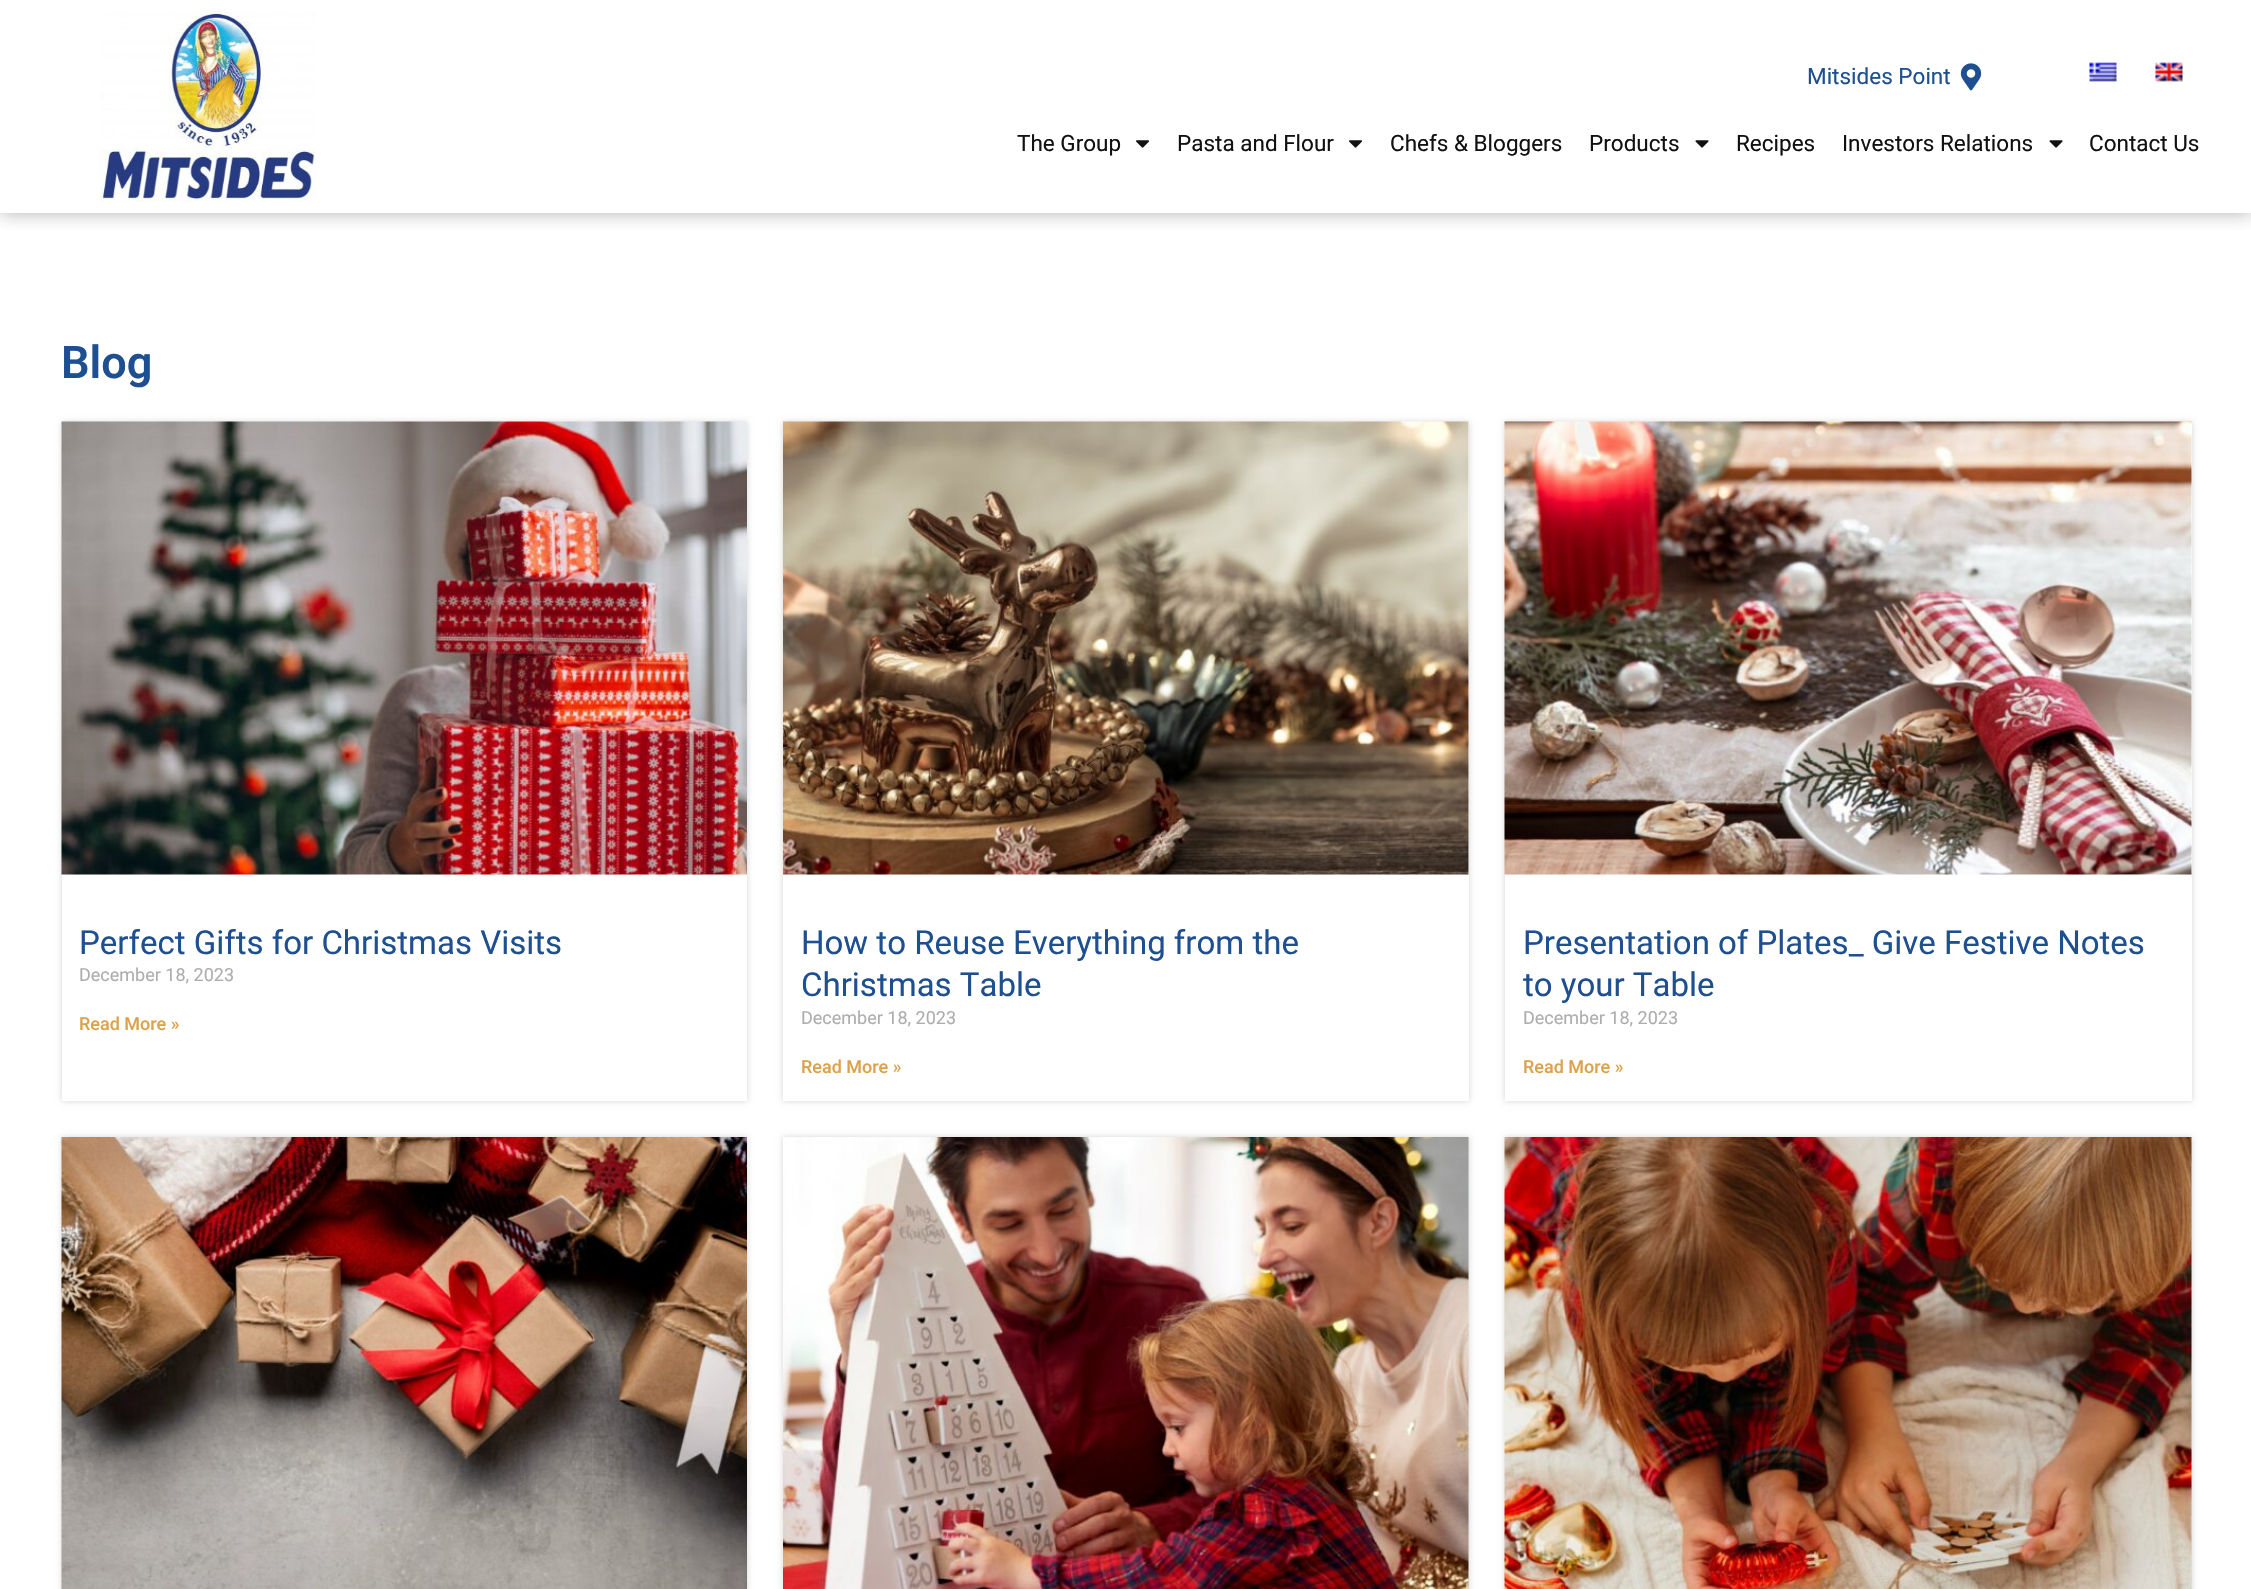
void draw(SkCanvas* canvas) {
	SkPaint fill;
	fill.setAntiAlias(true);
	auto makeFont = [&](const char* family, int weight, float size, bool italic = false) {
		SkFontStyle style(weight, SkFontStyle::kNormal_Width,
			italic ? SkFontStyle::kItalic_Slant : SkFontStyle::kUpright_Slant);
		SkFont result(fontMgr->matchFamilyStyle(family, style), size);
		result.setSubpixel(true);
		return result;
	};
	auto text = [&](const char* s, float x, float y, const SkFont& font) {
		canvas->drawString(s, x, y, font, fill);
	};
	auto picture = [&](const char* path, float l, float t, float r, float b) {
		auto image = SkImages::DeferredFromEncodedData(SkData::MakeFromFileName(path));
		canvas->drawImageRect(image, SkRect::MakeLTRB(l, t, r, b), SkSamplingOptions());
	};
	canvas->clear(0xFFFFFFFF);
	canvas->save();
	canvas->clipRect(SkRect::MakeLTRB(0, 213, 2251, 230));
	fill.setColor(0xA1838383);
	fill.setMaskFilter(SkMaskFilter::MakeBlur(kNormal_SkBlurStyle, 9));
	canvas->drawRect(SkRect::MakeLTRB(0, 0, 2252, 213), fill);
	fill.setMaskFilter(nullptr);
	canvas->restore();
	picture("image0.png", 99, 10, 317, 203);
	picture("image1.png", 1960, 63, 1982, 91);
	picture("image2.png", 2089, 62, 2117, 82);
	picture("image3.png", 2155, 62, 2183, 82);
	picture("image4.png", 1136, 140, 1149, 148);
	picture("image4.png", 1349, 140, 1362, 148);
	picture("image5.png", 1695, 140, 1709, 148);
	picture("image5.png", 2049, 140, 2063, 148);
	canvas->save();
	canvas->clipPath(SkPathBuilder(SkPathFillType::kEvenOdd).moveTo(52, 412).lineTo(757, 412).lineTo(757, 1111).lineTo(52, 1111).close().moveTo(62, 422).lineTo(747, 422).lineTo(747, 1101).lineTo(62, 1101).close().detach(), true);
	fill.setColor(0x2B000000);
	fill.setMaskFilter(SkMaskFilter::MakeBlur(kNormal_SkBlurStyle, 3));
	canvas->drawRect(SkRect::MakeLTRB(62, 422, 747, 1101), fill);
	fill.setMaskFilter(nullptr);
	canvas->restore();
	picture("image6.png", 61, 421, 747, 875);
	canvas->save();
	canvas->clipPath(SkPathBuilder(SkPathFillType::kEvenOdd).moveTo(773, 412).lineTo(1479, 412).lineTo(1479, 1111).lineTo(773, 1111).close().moveTo(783, 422).lineTo(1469, 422).lineTo(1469, 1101).lineTo(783, 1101).close().detach(), true);
	fill.setMaskFilter(SkMaskFilter::MakeBlur(kNormal_SkBlurStyle, 3));
	canvas->drawRect(SkRect::MakeLTRB(783, 422, 1469, 1101), fill);
	fill.setMaskFilter(nullptr);
	canvas->restore();
	picture("image7.png", 783, 421, 1469, 875);
	canvas->save();
	canvas->clipPath(SkPathBuilder(SkPathFillType::kEvenOdd).moveTo(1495, 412).lineTo(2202, 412).lineTo(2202, 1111).lineTo(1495, 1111).close().moveTo(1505, 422).lineTo(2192, 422).lineTo(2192, 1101).lineTo(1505, 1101).close().detach(), true);
	fill.setMaskFilter(SkMaskFilter::MakeBlur(kNormal_SkBlurStyle, 3));
	canvas->drawRect(SkRect::MakeLTRB(1505, 422, 2192, 1101), fill);
	fill.setMaskFilter(nullptr);
	canvas->restore();
	picture("image8.png", 1504, 421, 2192, 875);
	fill.setMaskFilter(SkMaskFilter::MakeBlur(kNormal_SkBlurStyle, 3));
	canvas->drawRect(SkRect::MakeLTRB(62, 1137, 747, 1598), fill);
	fill.setMaskFilter(nullptr);
	picture("image9.png", 61, 1137, 747, 1589);
	fill.setMaskFilter(SkMaskFilter::MakeBlur(kNormal_SkBlurStyle, 3));
	canvas->drawRect(SkRect::MakeLTRB(783, 1137, 1469, 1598), fill);
	fill.setMaskFilter(nullptr);
	picture("image10.png", 783, 1137, 1469, 1589);
	fill.setMaskFilter(SkMaskFilter::MakeBlur(kNormal_SkBlurStyle, 3));
	canvas->drawRect(SkRect::MakeLTRB(1505, 1137, 2192, 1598), fill);
	fill.setMaskFilter(nullptr);
	picture("image11.png", 1504, 1137, 2192, 1589);
	auto font1 = makeFont("Roboto", 400, 22.5f);
	fill.setColor(0xFF1D4F91);
	text("Mitsides Point", 1807, 84, font1);
	fill.setColor(0xFF111111);
	text("The Group", 1017, 151, font1);
	text("Pasta and Flour", 1177, 151, font1);
	text("Chefs & Bloggers", 1390, 151, font1);
	text("Products", 1589, 151, font1);
	text("Recipes", 1736, 151, font1);
	text("Investors Relations", 1842, 151, font1);
	text("Contact Us", 2089, 151, font1);
	auto font2 = makeFont("Roboto", 600, 45);
	fill.setColor(0xFF1D4F91);
	text("Blog", 61, 378, font2);
	auto font3 = makeFont("Roboto", 400, 33);
	text("Perfect Gifts for Christmas Visits", 79, 954, font3);
	auto font4 = makeFont("Roboto", 400, 18);
	fill.setColor(0xFFADADAD);
	text("December 18, 2023", 79, 981, font4);
	auto font5 = makeFont("Roboto", 500, 18);
	fill.setColor(0xFFDCA24B);
	text("Read More »", 79, 1030, font5);
	fill.setColor(0xFF1D4F91);
	text("How to Reuse Everything from the", 801, 954, font3);
	text("Christmas Table", 801, 996, font3);
	fill.setColor(0xFFADADAD);
	text("December 18, 2023", 801, 1024, font4);
	fill.setColor(0xFFDCA24B);
	text("Read More »", 801, 1073, font5);
	fill.setColor(0xFF1D4F91);
	text("Presentation of Plates_ Give Festive Notes", 1523, 954, font3);
	text("to your Table", 1523, 996, font3);
	fill.setColor(0xFFADADAD);
	text("December 18, 2023", 1523, 1024, font4);
	fill.setColor(0xFFDCA24B);
	text("Read More »", 1523, 1073, font5);
}
